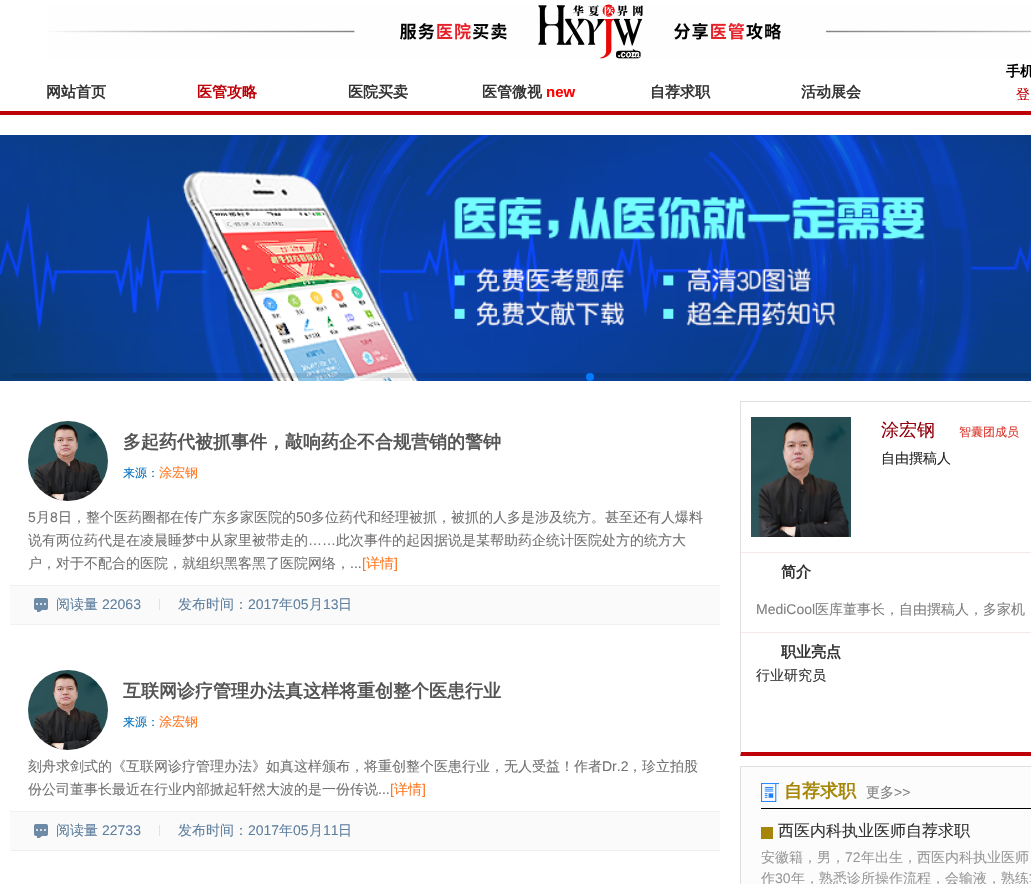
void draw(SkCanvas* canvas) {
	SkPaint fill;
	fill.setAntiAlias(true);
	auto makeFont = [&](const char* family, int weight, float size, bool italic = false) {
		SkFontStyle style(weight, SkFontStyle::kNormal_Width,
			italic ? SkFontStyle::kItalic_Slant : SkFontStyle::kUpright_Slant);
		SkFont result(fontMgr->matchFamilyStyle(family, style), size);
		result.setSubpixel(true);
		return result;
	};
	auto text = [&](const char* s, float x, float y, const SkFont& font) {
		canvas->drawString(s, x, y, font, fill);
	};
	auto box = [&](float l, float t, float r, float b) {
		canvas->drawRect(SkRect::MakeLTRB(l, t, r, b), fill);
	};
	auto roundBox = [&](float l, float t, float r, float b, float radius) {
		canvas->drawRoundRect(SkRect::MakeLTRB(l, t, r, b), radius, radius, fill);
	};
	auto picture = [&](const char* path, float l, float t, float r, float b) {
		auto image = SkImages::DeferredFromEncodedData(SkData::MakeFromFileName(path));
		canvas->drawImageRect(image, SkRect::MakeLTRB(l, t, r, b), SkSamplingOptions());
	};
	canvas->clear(0xFFFFFFFF);
	fill.setColor(0xFFBE0008);
	box(0, 111, 1031, 115);
	picture("image0.png", 47, 4, 1031, 59);
	picture("image1.png", 0, 135, 1031, 381);
	fill.setColor(0x1A000000);
	roundBox(12, 373, 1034, 378, 2.5f);
	fill.setColor(0xFF007AFF);
	canvas->drawCircle(590, 377, 4, fill);
	picture("image2.png", 28, 421, 108, 501);
	fill.setColor(0xFFFAFAFA);
	box(10, 586, 720, 624);
	fill.setColor(0xFFF0F0F0);
	box(10, 585, 720, 586);
	box(10, 624, 720, 625);
	picture("image3.png", 34, 598, 48, 612);
	fill.setColor(0xFFE2E2E2);
	box(159, 599, 160, 610);
	picture("image2.png", 28, 670, 108, 750);
	fill.setColor(0xFFFAFAFA);
	box(10, 812, 720, 850);
	fill.setColor(0xFFF0F0F0);
	box(10, 811, 720, 812);
	box(10, 850, 720, 851);
	picture("image3.png", 34, 824, 48, 838);
	fill.setColor(0xFFE2E2E2);
	box(159, 825, 160, 836);
	fill.setColor(0xFFDFDFDF);
	box(740, 401, 1031, 402);
	fill.setColor(0xFFBE0008);
	canvas->drawPath(SkPathBuilder().moveTo(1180, 756).lineTo(740, 756).lineTo(741, 752).lineTo(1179, 752).close().detach(), fill);
	fill.setColor(0xFFDFDFDF);
	canvas->drawPath(SkPathBuilder().moveTo(740, 756).lineTo(740, 401).lineTo(741, 402).lineTo(741, 752).close().detach(), fill);
	picture("image4.png", 751, 417, 851, 537);
	fill.setColor(0xFFF6E8E7);
	box(741, 552, 1031, 553);
	box(741, 632, 1031, 633);
	fill.setColor(0xFFFCFCFC);
	canvas->drawRect(SkRect::MakeLTRB(740.5f, 766.5f, 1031.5f, 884.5f), fill);
	fill.setStyle(SkPaint::kStroke_Style);
	fill.setStrokeWidth(1);
	fill.setColor(0xFFDFDFDF);
	canvas->drawRect(SkRect::MakeLTRB(740.5f, 766.5f, 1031.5f, 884.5f), fill);
	fill.setStyle(SkPaint::kFill_Style);
	fill.setColor(0xFF000000);
	box(761, 808, 1031, 809);
	picture("image5.png", 761, 783, 779, 802);
	fill.setColor(0xFFA58607);
	box(761, 827, 773, 839);
	auto font1 = makeFont("WenQuanYi Zen Hei", 700, 15);
	fill.setColor(0xFF333333);
	text("网站首页", 46, 97, font1);
	fill.setColor(0xFFBE0008);
	text("医管攻略", 197, 97, font1);
	fill.setColor(0xFF333333);
	text("医院买卖", 348, 97, font1);
	text("医管微视", 482, 97, font1);
	auto font2 = makeFont("Liberation Sans", 700, 15);
	fill.setColor(0xFFFF0000);
	text("new", 546, 97, font2);
	fill.setColor(0xFF333333);
	text("自荐求职", 650, 97, font1);
	text("活动展会", 801, 97, font1);
	auto font3 = makeFont("WenQuanYi Zen Hei", 700, 14);
	fill.setColor(0xFF000000);
	text("手机", 1006, 76, font3);
	auto font4 = makeFont("WenQuanYi Zen Hei", 500, 14);
	fill.setColor(0xFFBE0008);
	text("登", 1016, 99, font4);
	auto font5 = makeFont("WenQuanYi Zen Hei", 700, 18);
	fill.setColor(0xFF555555);
	text("多起药代被抓事件，敲响药企不合规营销的警钟", 123, 448, font5);
	auto font6 = makeFont("WenQuanYi Zen Hei", 500, 12);
	fill.setColor(0xFF0070C0);
	text("来源：", 123, 477, font6);
	auto font7 = makeFont("WenQuanYi Zen Hei", 500, 13);
	fill.setColor(0xFFFE7823);
	text("涂宏钢", 159, 477, font7);
	auto font8 = makeFont("Liberation Sans", 400, 14);
	fill.setColor(0xFF737172);
	text("5", 28, 522, font8);
	text("月", 36, 522, font4);
	text("8", 50, 522, font8);
	text("日，整个医药圈都在传广东多家医院的", 58, 522, font4);
	text("50", 296, 522, font8);
	text("多位药代和经理被抓，被抓的人多是涉及统方。甚至还有人爆料", 311, 522, font4);
	text("说有两位药代是在凌晨睡梦中从家里被带走的", 28, 545, font4);
	text("……", 308, 545, font8);
	text("此次事件的起因据说是某帮助药企统计医院处方的统方大", 336, 545, font4);
	text("户，对于不配合的医院，就组织黑客黑了医院网络，", 28, 568, font4);
	text("...", 350, 568, font8);
	fill.setColor(0xFFFE7823);
	text("[", 362, 568, font8);
	text("详情", 366, 568, font4);
	text("]", 394, 568, font8);
	fill.setColor(0xFF5F809F);
	text("阅读量", 56, 609, font4);
	text("22063", 102, 609, font8);
	text("发布时间：", 178, 609, font4);
	text("2017", 248, 609, font8);
	text("年", 279, 609, font4);
	text("05", 293, 609, font8);
	text("月", 309, 609, font4);
	text("13", 323, 609, font8);
	text("日", 338, 609, font4);
	fill.setColor(0xFF555555);
	text("互联网诊疗管理办法真这样将重创整个医患行业", 123, 697, font5);
	fill.setColor(0xFF0070C0);
	text("来源：", 123, 726, font6);
	fill.setColor(0xFFFE7823);
	text("涂宏钢", 159, 726, font7);
	fill.setColor(0xFF737172);
	text("刻舟求剑式的《互联网诊疗管理办法》如真这样颁布，将重创整个医患行业，无人受益！作者", 28, 771, font4);
	text("Dr.2", 602, 771, font8);
	text("，珍立拍股", 628, 771, font4);
	text("份公司董事长最近在行业内部掀起轩然大波的是一份传说", 28, 794, font4);
	text("...", 378, 794, font8);
	fill.setColor(0xFFFE7823);
	text("[", 390, 794, font8);
	text("详情", 394, 794, font4);
	text("]", 422, 794, font8);
	fill.setColor(0xFF5F809F);
	text("阅读量", 56, 835, font4);
	text("22733", 102, 835, font8);
	text("发布时间：", 178, 835, font4);
	text("2017", 248, 835, font8);
	text("年", 279, 835, font4);
	text("05", 293, 835, font8);
	text("月", 309, 835, font4);
	text("11", 323, 835, font8);
	text("日", 338, 835, font4);
	auto font9 = makeFont("WenQuanYi Zen Hei", 500, 18);
	fill.setColor(0xFF93000B);
	text("涂宏钢", 881, 436, font9);
	fill.setColor(0xFFDA392F);
	text("智囊团成员", 959, 436, font6);
	fill.setColor(0xFF262626);
	text("自由撰稿人", 881, 463, font4);
	fill.setColor(0xFF333333);
	text("简介", 781, 577, font1);
	fill.setColor(0xFF808080);
	text("MediCool", 756, 614, font8);
	text("医库董事长，自由撰稿人，多家机", 815, 614, font4);
	fill.setColor(0xFF333333);
	text("职业亮点", 781, 657, font1);
	text("行业研究员", 756, 680, font4);
	fill.setColor(0xFFA58607);
	text("自荐求职", 784, 797, font5);
	fill.setColor(0xFF808080);
	text("更多", 866, 797, font4);
	text(">>", 894, 797, font8);
	auto font10 = makeFont("WenQuanYi Zen Hei", 500, 16);
	fill.setColor(0xFF333333);
	text("西医内科执业医师自荐求职", 778, 836, font10);
	fill.setColor(0xFF999999);
	text("安徽籍，男，", 761, 862, font4);
	text("72", 845, 862, font8);
	text("年出生，西医内科执业医师", 861, 862, font4);
	text("作", 761, 883, font4);
	text("30", 775, 883, font8);
	text("年，熟悉诊所操作流程，会输液，熟练掌", 791, 883, font4);
}
